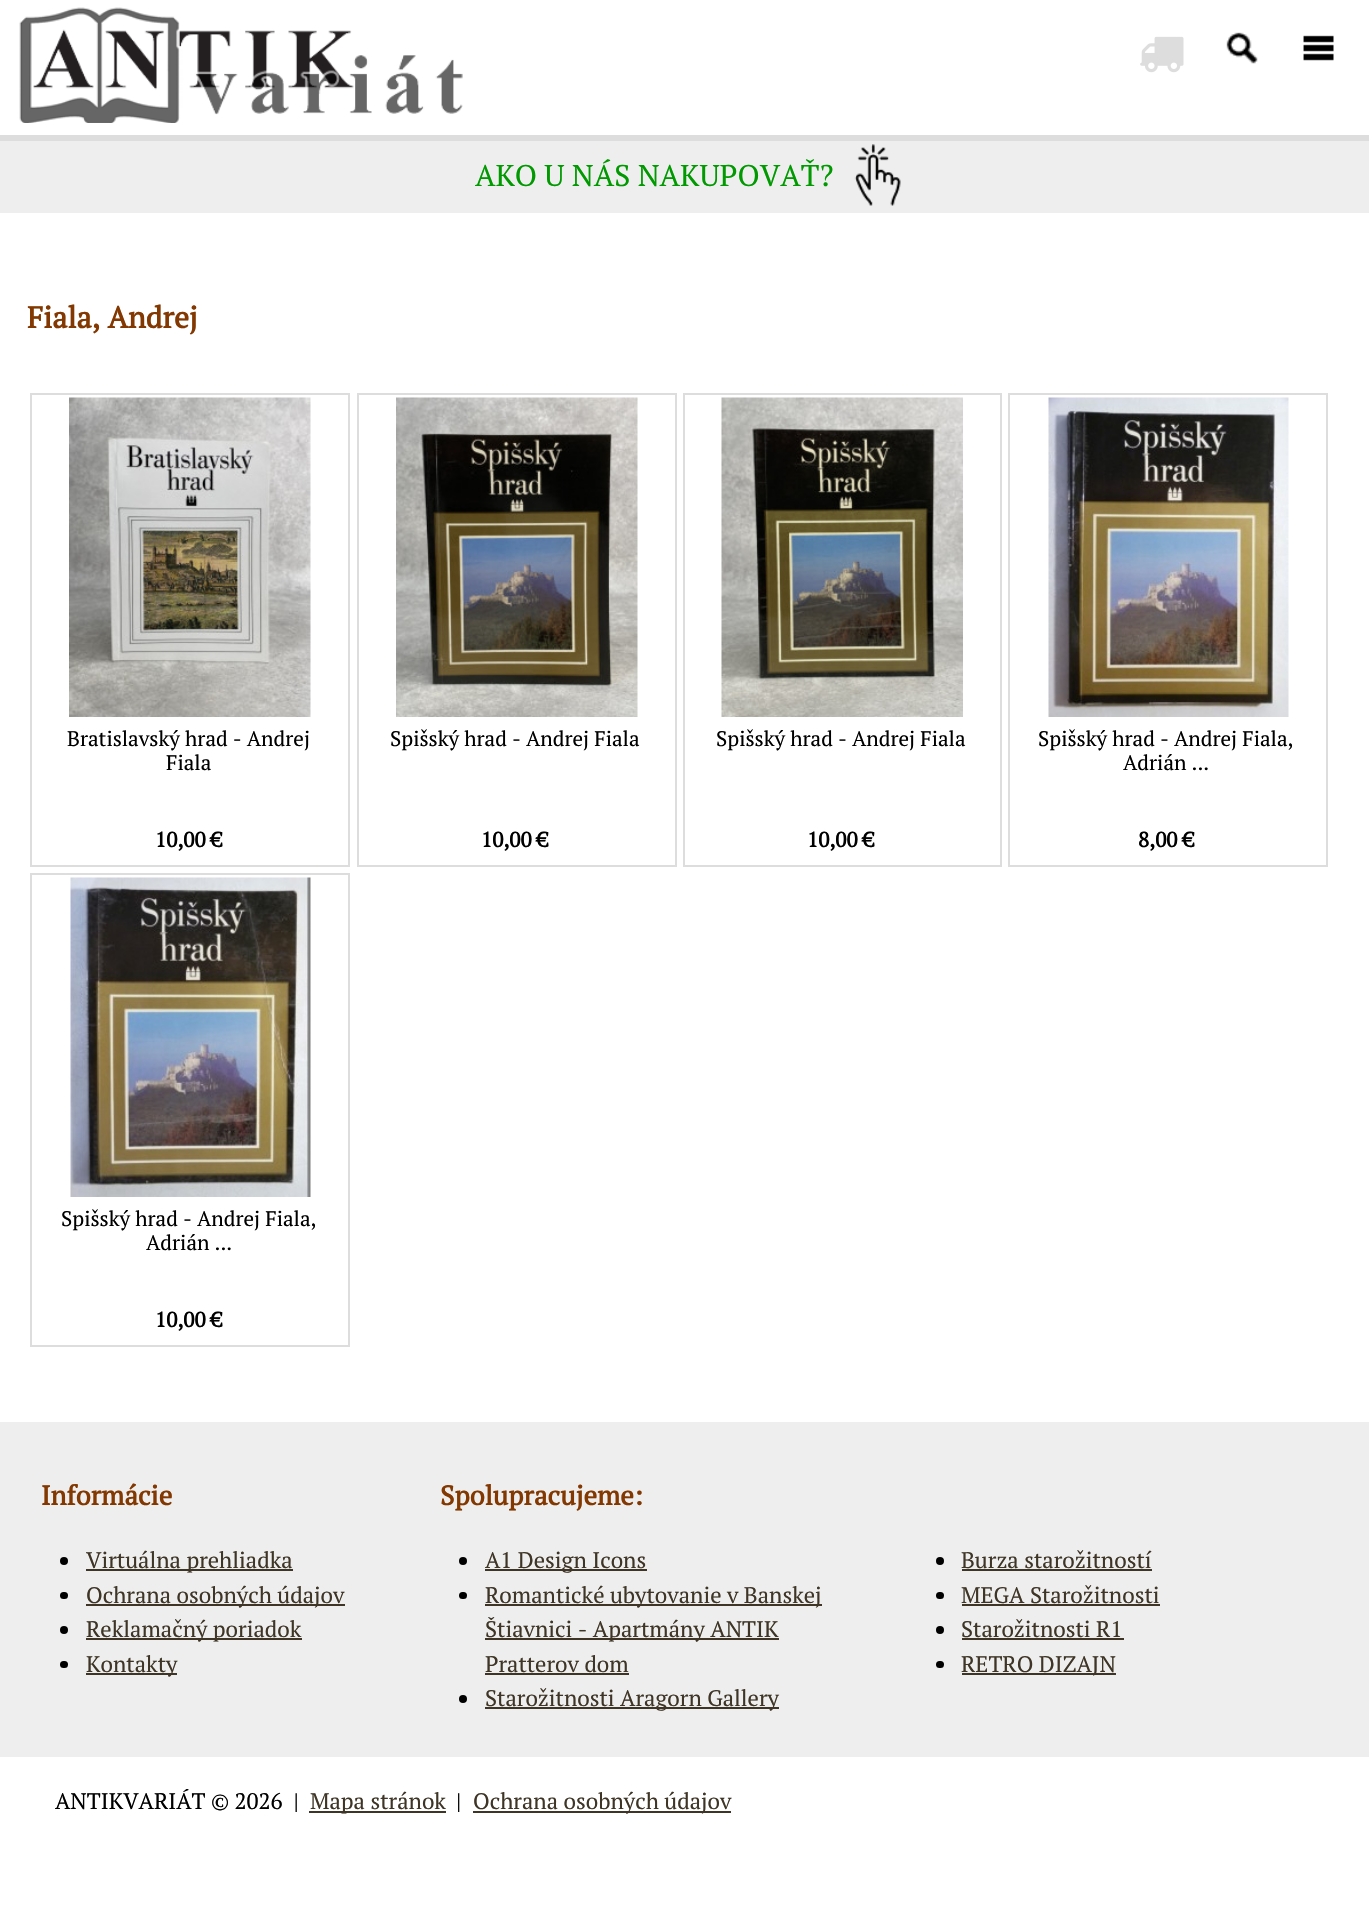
void draw(SkCanvas* canvas) {
	SkPaint fill;
	fill.setAntiAlias(true);
	auto makeFont = [&](const char* family, int weight, float size, bool italic = false) {
		SkFontStyle style(weight, SkFontStyle::kNormal_Width,
			italic ? SkFontStyle::kItalic_Slant : SkFontStyle::kUpright_Slant);
		SkFont result(fontMgr->matchFamilyStyle(family, style), size);
		result.setSubpixel(true);
		return result;
	};
	auto text = [&](const char* s, float x, float y, const SkFont& font) {
		canvas->drawString(s, x, y, font, fill);
	};
	auto box = [&](float l, float t, float r, float b) {
		canvas->drawRect(SkRect::MakeLTRB(l, t, r, b), fill);
	};
	auto roundBox = [&](float l, float t, float r, float b, float radius) {
		canvas->drawRoundRect(SkRect::MakeLTRB(l, t, r, b), radius, radius, fill);
	};
	auto picture = [&](const char* path, float l, float t, float r, float b) {
		auto image = SkImages::DeferredFromEncodedData(SkData::MakeFromFileName(path));
		canvas->drawImageRect(image, SkRect::MakeLTRB(l, t, r, b), SkSamplingOptions());
	};
	canvas->clear(0xFFFFFFFF);
	fill.setColor(0xFFDDDDDD);
	box(0, 135, 1369, 141);
	picture("image0.png", 19, 7, 463, 123);
	picture("image1.png", 1140, 36, 1184, 73);
	picture("image2.png", 1226, 32, 1258, 64);
	picture("image3.png", 1303, 35, 1334, 61);
	fill.setColor(0xFFEEEEEE);
	box(0, 141, 1369, 213);
	picture("image4.png", 854, 144, 901, 206);
	fill.setStyle(SkPaint::kStroke_Style);
	fill.setStrokeWidth(2);
	fill.setColor(0xFFDDDDDD);
	canvas->drawRect(SkRect::MakeLTRB(31, 394, 349, 866), fill);
	picture("image5.png", 69, 397, 311, 717);
	canvas->drawRect(SkRect::MakeLTRB(358, 394, 676, 866), fill);
	picture("image6.png", 396, 397, 638, 717);
	canvas->drawRect(SkRect::MakeLTRB(684, 394, 1001, 866), fill);
	picture("image7.png", 721, 397, 963, 717);
	canvas->drawRect(SkRect::MakeLTRB(1009, 394, 1327, 866), fill);
	picture("image8.png", 1048, 397, 1289, 717);
	canvas->drawRect(SkRect::MakeLTRB(31, 874, 349, 1346), fill);
	picture("image9.png", 70, 877, 311, 1197);
	fill.setStyle(SkPaint::kFill_Style);
	fill.setColor(0xFFEEEEEE);
	box(0, 1422, 1369, 1757);
	fill.setColor(0xFF000000);
	canvas->drawCircle(64, 1561, 4, fill);
	fill.setColor(0xFF3E3526);
	box(86, 1569, 293, 1571);
	fill.setColor(0xFF000000);
	roundBox(60, 1592, 68, 1599, 3.5f);
	fill.setColor(0xFF3E3526);
	box(86, 1604, 345, 1606);
	fill.setColor(0xFF000000);
	canvas->drawCircle(64, 1630, 4, fill);
	fill.setColor(0xFF3E3526);
	box(86, 1638, 302, 1640);
	fill.setColor(0xFF000000);
	roundBox(60, 1661, 68, 1668, 3.5f);
	fill.setColor(0xFF3E3526);
	box(86, 1673, 177, 1675);
	fill.setColor(0xFF000000);
	canvas->drawCircle(463, 1561, 4, fill);
	fill.setColor(0xFF3E3526);
	box(485, 1569, 647, 1571);
	fill.setColor(0xFF000000);
	roundBox(459, 1592, 467, 1599, 3.5f);
	fill.setColor(0xFF3E3526);
	box(485, 1604, 822, 1606);
	box(485, 1638, 779, 1640);
	box(485, 1673, 629, 1675);
	fill.setColor(0xFF000000);
	canvas->drawCircle(463, 1699, 4, fill);
	fill.setColor(0xFF3E3526);
	box(485, 1707, 779, 1709);
	fill.setColor(0xFF000000);
	canvas->drawCircle(940, 1561, 4, fill);
	fill.setColor(0xFF3E3526);
	box(962, 1569, 1152, 1571);
	fill.setColor(0xFF000000);
	roundBox(936, 1592, 944, 1599, 3.5f);
	fill.setColor(0xFF3E3526);
	box(962, 1604, 1160, 1606);
	fill.setColor(0xFF000000);
	canvas->drawCircle(940, 1630, 4, fill);
	fill.setColor(0xFF3E3526);
	box(962, 1638, 1124, 1640);
	fill.setColor(0xFF000000);
	roundBox(936, 1661, 944, 1668, 3.5f);
	fill.setColor(0xFF3E3526);
	box(962, 1673, 1116, 1675);
	box(309, 1811, 446, 1813);
	box(473, 1811, 731, 1813);
	auto font1 = makeFont("PT Serif", 400, 30);
	fill.setColor(0xFF009900);
	text("AKO U NÁS NAKUPOVAŤ?", 475, 186, font1);
	auto font2 = makeFont("PT Serif", 700, 30);
	fill.setColor(0xFF823800);
	text("Fiala, Andrej", 27, 328, font2);
	auto font3 = makeFont("PT Serif", 400, 21);
	fill.setColor(0xFF000000);
	text("Bratislavský hrad - Andrej", 67, 746, font3);
	text("Fiala", 166, 770, font3);
	auto font4 = makeFont("PT Serif", 700, 21);
	text("10,00 €", 155, 847, font4);
	text("Spišský hrad - Andrej Fiala", 390, 746, font3);
	text("10,00 €", 481, 847, font4);
	text("Spišský hrad - Andrej Fiala", 716, 746, font3);
	text("10,00 €", 807, 847, font4);
	text("Spišský hrad - Andrej Fiala,", 1038, 746, font3);
	text("Adrián ...", 1123, 770, font3);
	text("8,00 €", 1138, 847, font4);
	text("Spišský hrad - Andrej Fiala,", 61, 1226, font3);
	text("Adrián ...", 146, 1250, font3);
	text("10,00 €", 155, 1327, font4);
	auto font5 = makeFont("PT Serif", 700, 27);
	fill.setColor(0xFF823800);
	text("Informácie", 41, 1505, font5);
	auto font6 = makeFont("PT Serif", 400, 22.5f);
	fill.setColor(0xFF3E3526);
	text("Virtuálna prehliadka", 86, 1568, font6);
	text("Ochrana osobných údajov", 86, 1603, font6);
	text("Reklamačný poriadok", 86, 1637, font6);
	text("Kontakty", 86, 1672, font6);
	fill.setColor(0xFF823800);
	text("Spolupracujeme:", 440, 1505, font5);
	fill.setColor(0xFF3E3526);
	text("A1 Design Icons", 485, 1568, font6);
	text("Romantické ubytovanie v Banskej", 485, 1603, font6);
	text("Štiavnici - Apartmány ANTIK", 485, 1637, font6);
	text("Pratterov dom", 485, 1672, font6);
	text("Starožitnosti Aragorn Gallery", 485, 1706, font6);
	text("Burza starožitností", 961, 1568, font6);
	text("MEGA Starožitnosti", 961, 1603, font6);
	text("Starožitnosti R1", 961, 1637, font6);
	text("RETRO DIZAJN", 961, 1672, font6);
	fill.setColor(0xFF000000);
	text("ANTIKVARIÁT © 2026  |", 55, 1809, font6);
	fill.setColor(0xFF3E3526);
	text("Mapa stránok", 310, 1809, font6);
	fill.setColor(0xFF000000);
	text("|", 456, 1809, font6);
	fill.setColor(0xFF3E3526);
	text("Ochrana osobných údajov", 473, 1809, font6);
}
